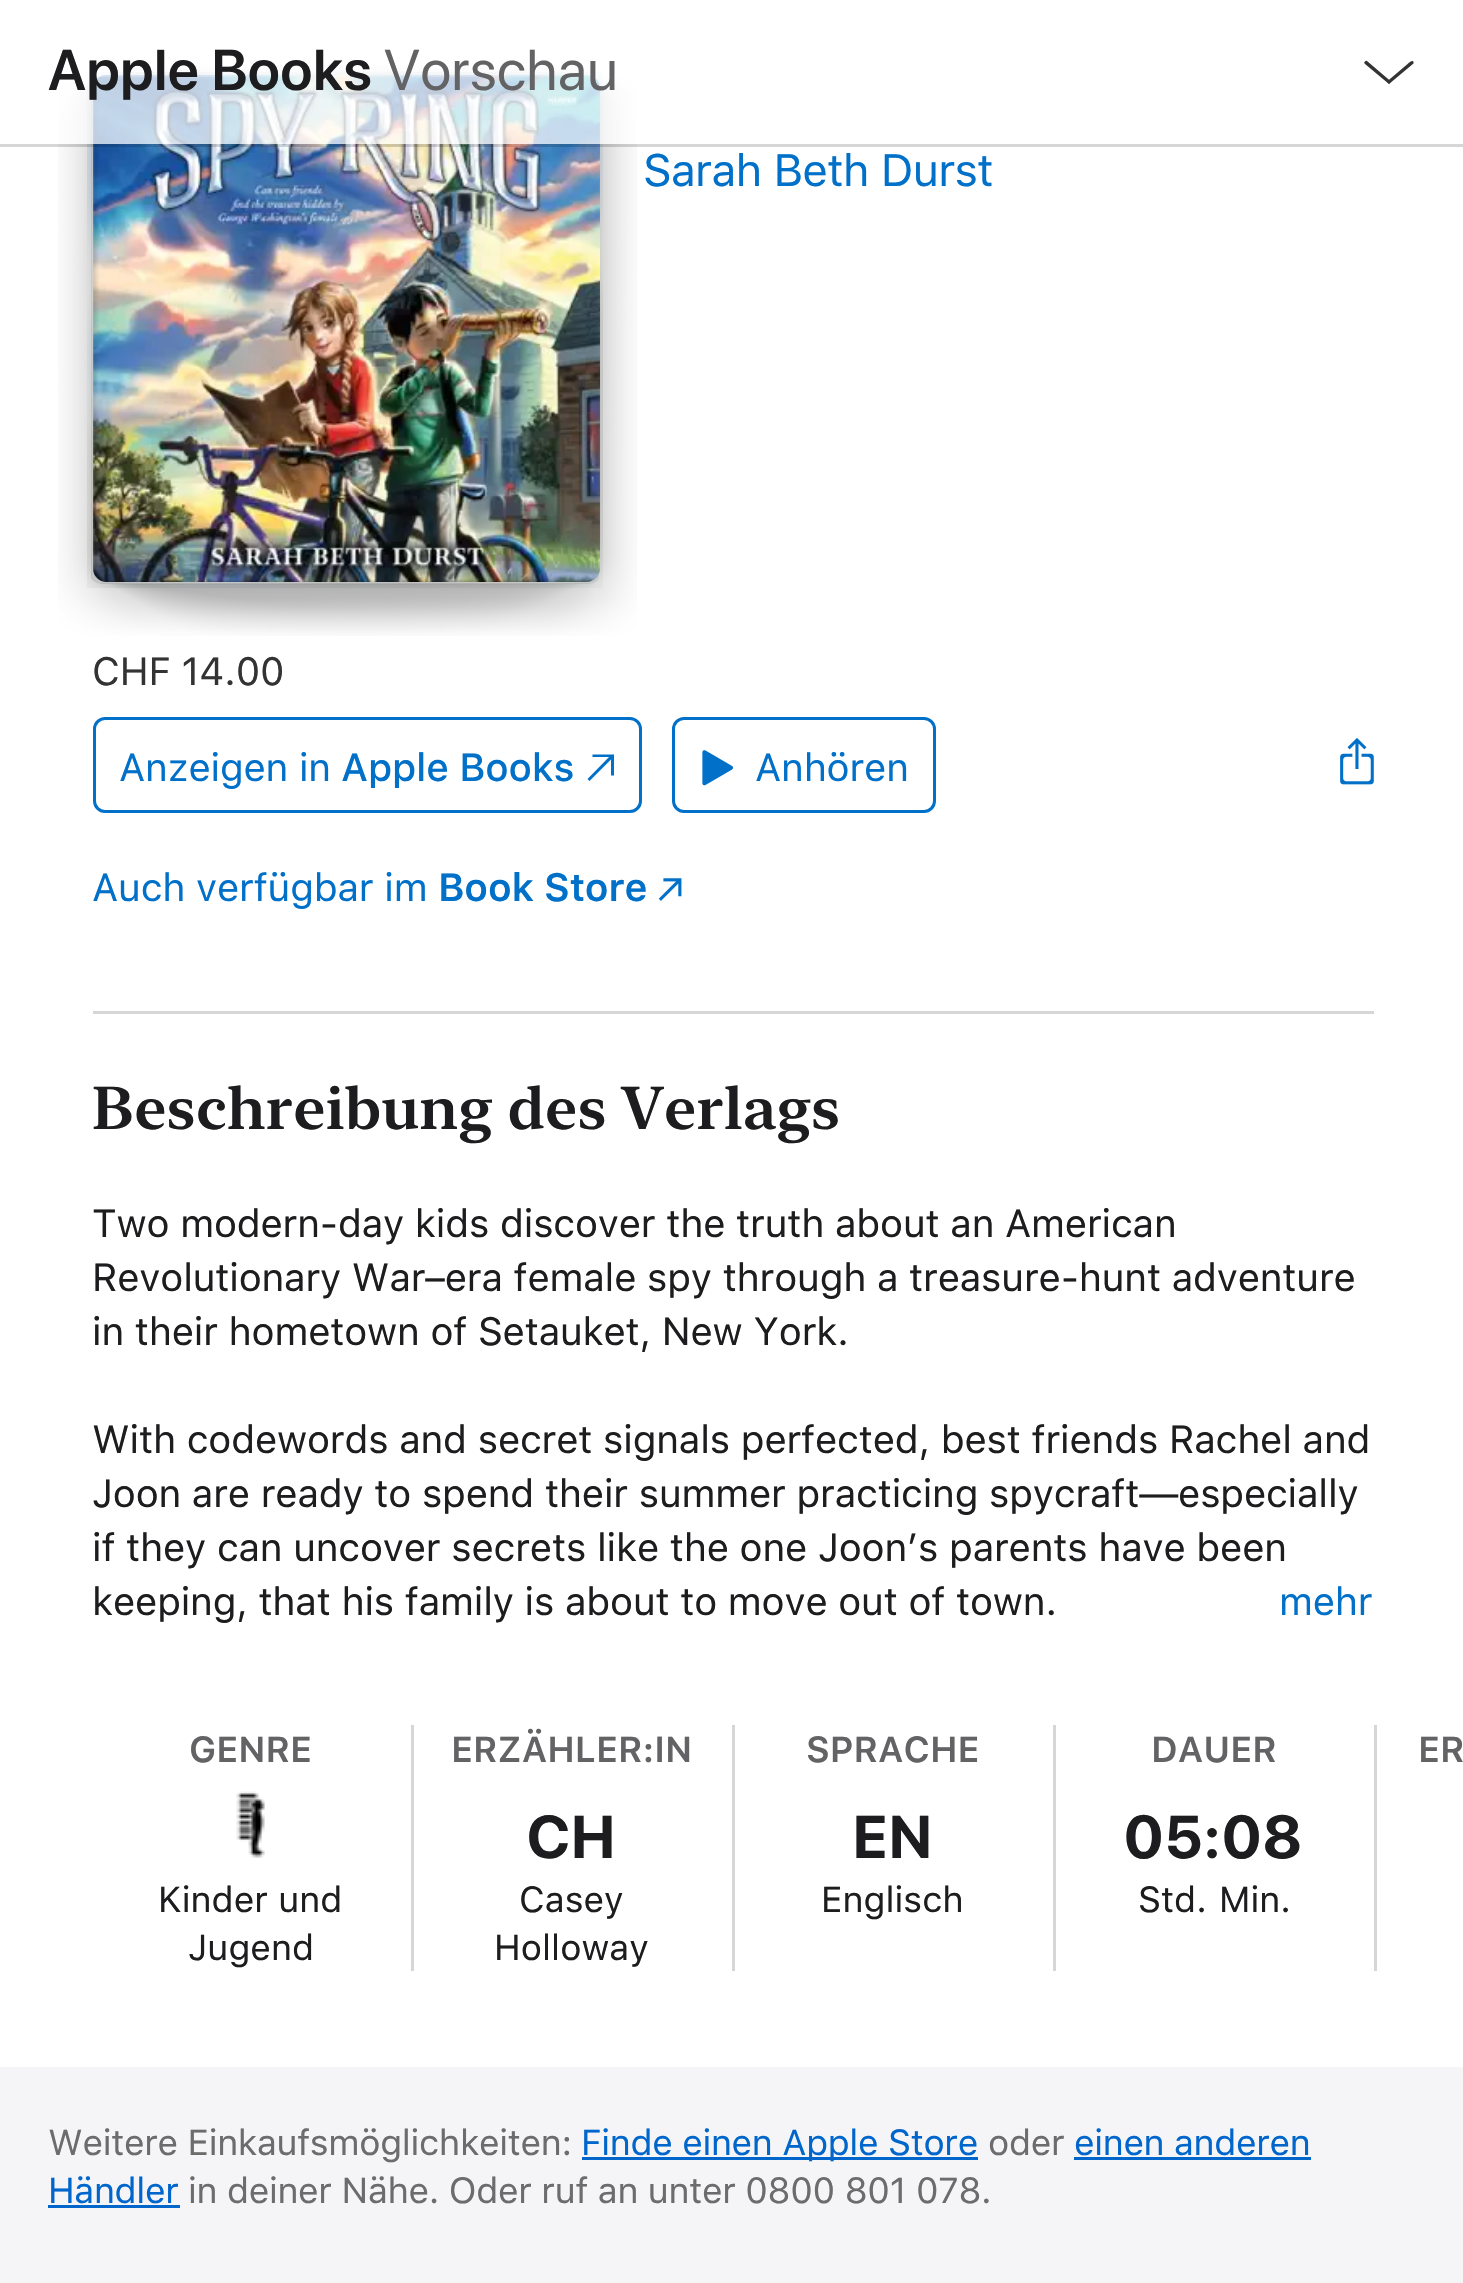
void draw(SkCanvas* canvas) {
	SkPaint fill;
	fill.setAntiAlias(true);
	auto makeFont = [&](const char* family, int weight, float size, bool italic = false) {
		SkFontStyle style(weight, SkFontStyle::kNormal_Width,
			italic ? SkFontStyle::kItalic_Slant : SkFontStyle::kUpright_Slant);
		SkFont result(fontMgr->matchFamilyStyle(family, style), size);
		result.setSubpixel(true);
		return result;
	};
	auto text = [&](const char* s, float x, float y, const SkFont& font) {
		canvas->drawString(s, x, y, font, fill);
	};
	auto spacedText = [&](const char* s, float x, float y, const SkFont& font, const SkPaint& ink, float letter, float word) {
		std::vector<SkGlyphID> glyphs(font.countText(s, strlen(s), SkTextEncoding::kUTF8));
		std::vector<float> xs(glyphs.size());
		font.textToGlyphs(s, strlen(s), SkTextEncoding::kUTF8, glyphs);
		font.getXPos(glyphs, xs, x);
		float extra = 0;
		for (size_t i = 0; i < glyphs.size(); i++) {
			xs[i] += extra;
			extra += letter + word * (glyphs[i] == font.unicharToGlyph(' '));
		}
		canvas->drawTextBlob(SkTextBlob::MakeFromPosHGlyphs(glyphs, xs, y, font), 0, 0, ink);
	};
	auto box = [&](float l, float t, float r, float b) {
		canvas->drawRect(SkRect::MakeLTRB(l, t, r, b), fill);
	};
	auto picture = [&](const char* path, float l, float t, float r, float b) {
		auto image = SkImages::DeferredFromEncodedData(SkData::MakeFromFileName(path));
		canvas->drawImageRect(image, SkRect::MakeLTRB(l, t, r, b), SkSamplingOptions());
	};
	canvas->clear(0xFFF5F5F7);
	fill.setColor(0xFFFFFFFF);
	box(0, 0, 1463, 2067);
	fill.setColor(0xFF333333);
	canvas->drawPath(SkPathBuilder().moveTo(1367, 61).lineTo(1391, 81.5f).lineTo(1389, 84).lineTo(1365, 64).cubicTo(1364, 63, 1364, 62, 1365, 61.5f).cubicTo(1365.5f, 61, 1366.5f, 60.5f, 1367, 61).close().detach(), fill);
	canvas->drawPath(SkPathBuilder().moveTo(1387, 81.5f).lineTo(1407, 64.5f).cubicTo(1407, 64.5f, 1412.5f, 58.5f, 1413.5f, 62).lineTo(1413.5f, 63.5f).lineTo(1389, 84).close().detach(), fill);
	picture("image0.png", 58, 65, 637, 636);
	picture("image1.png", 87, 72, 603, 588);
	picture("image2.png", 93, 75, 600, 582);
	picture("image3.png", 93, 75, 600, 582);
	fill.setColor(0xB8FFFFFF);
	box(58, 65, 637, 144);
	fill.setColor(0x29000000);
	box(0, 144, 1463, 147);
	fill.setStyle(SkPaint::kStroke_Style);
	fill.setStrokeWidth(3);
	fill.setColor(0xFF0070C9);
	canvas->drawRoundRect(SkRect::MakeLTRB(94.5f, 718.5f, 640.5f, 811.5f), 10.5f, 10.5f, fill);
	fill.setStyle(SkPaint::kFill_Style);
	canvas->drawPath(SkPathBuilder().moveTo(589.5f, 781).lineTo(611, 759.5f).lineTo(611, 775.5f).lineTo(614, 775.5f).lineTo(614, 754.5f).lineTo(592.5f, 754.5f).lineTo(592.5f, 757).lineTo(609, 757).lineTo(587.5f, 779).close().detach(), fill);
	fill.setStyle(SkPaint::kStroke_Style);
	canvas->drawRoundRect(SkRect::MakeLTRB(673.5f, 718.5f, 934.5f, 811.5f), 10.5f, 10.5f, fill);
	picture("image4.png", 702, 750, 734, 786);
	picture("image5.png", 1340, 738, 1374, 785);
	picture("image6.png", 658, 878, 682, 901);
	fill.setStyle(SkPaint::kFill_Style);
	fill.setColor(0xFFD6D6D6);
	box(93, 1011, 1374, 1014);
	box(411, 1725, 414, 1971);
	picture("image7.png", 236, 1791, 265, 1858);
	box(732, 1725, 735, 1971);
	box(1053, 1725, 1056, 1971);
	box(1374, 1725, 1377, 1971);
	fill.setColor(0xFF0066CC);
	box(582, 2157, 978, 2160);
	box(1074, 2157, 1311, 2160);
	box(48, 2205, 180, 2208);
	auto font1 = makeFont("SF Pro Display", 600, 57);
	fill.setColor(0xFF1D1D1F);
	spacedText("Apple Books", 48, 90, font1, fill, 0.75f, 0);
	auto font2 = makeFont("SF Pro Display", 400, 57);
	fill.setColor(0xFF636366);
	spacedText("Vorschau", 384, 90, font2, fill, 0.75f, 0);
	auto font3 = makeFont("SF Pro Text", 400, 45);
	fill.setColor(0xFF0070C9);
	spacedText("Sarah Beth Durst", 643, 186, font3, fill, -0.75f, 0);
	auto font4 = makeFont("SF Pro Text", 400, 39);
	fill.setColor(0xFF333333);
	spacedText("CHF 14.00", 92, 685, font4, fill, -0.2f, 0);
	fill.setColor(0xFF0070C9);
	spacedText("Anzeigen in", 119, 781, font4, fill, -0.2f, 0);
	auto font5 = makeFont("SF Pro Text", 500, 39);
	spacedText("Apple Books", 341, 781, font5, fill, -0.2f, 0);
	spacedText("Anhören", 755, 781, font4, fill, -0.2f, 0);
	spacedText("Auch verfügbar im", 92, 901, font4, fill, -0.2f, 0);
	auto font6 = makeFont("SF Pro Text", 600, 39);
	spacedText("Book Store", 438, 901, font6, fill, -0.2f, 0);
	auto font7 = makeFont("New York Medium", 600, 60);
	fill.setColor(0xFF1D1D1F);
	text("Beschreibung des Verlags", 92, 1129, font7);
	spacedText("Two modern-day kids discover the truth about an American", 92, 1237, font4, fill, -0.2f, 0);
	spacedText("Revolutionary War–era female spy through a treasure-hunt adventure", 92, 1291, font4, fill, -0.2f, 0);
	spacedText("in their hometown of Setauket, New York.", 92, 1345, font4, fill, -0.2f, 0);
	spacedText("With codewords and secret signals perfected, best friends Rachel and", 92, 1453, font4, fill, -0.2f, 0);
	spacedText("Joon are ready to spend their summer practicing spycraft—especially", 92, 1507, font4, fill, -0.2f, 0);
	spacedText("if they can uncover secrets like the one Joon’s parents have been", 92, 1561, font4, fill, -0.2f, 0);
	spacedText("keeping, that his family is about to move out of town.", 92, 1615, font4, fill, -0.2f, 0);
	fill.setColor(0xFF0070C9);
	spacedText("mehr", 1279, 1615, font4, fill, -0.2f, 0);
	auto font8 = makeFont("SF Pro Text", 600, 36);
	fill.setColor(0xFF636366);
	text("GENRE", 189, 1762, font8);
	auto font9 = makeFont("SF Pro Text", 400, 36);
	fill.setColor(0xFF1D1D1F);
	text("Kinder und", 158, 1912, font9);
	text("Jugend", 188, 1960, font9);
	fill.setColor(0xFF636366);
	text("ERZÄHLER:IN", 451, 1762, font8);
	auto font10 = makeFont("SF Pro Display", 700, 60);
	fill.setColor(0xFF1D1D1F);
	spacedText("CH", 527, 1858, font10, fill, 1.5f, 0);
	text("Casey", 519, 1912, font9);
	text("Holloway", 494, 1960, font9);
	fill.setColor(0xFF636366);
	text("SPRACHE", 806, 1762, font8);
	fill.setColor(0xFF1D1D1F);
	spacedText("EN", 853, 1858, font10, fill, 1.5f, 0);
	text("Englisch", 821, 1912, font9);
	fill.setColor(0xFF636366);
	text("DAUER", 1151, 1762, font8);
	fill.setColor(0xFF1D1D1F);
	spacedText("05:08", 1124, 1858, font10, fill, 1.5f, 0);
	text("Std.", 1138, 1912, font9);
	text("Min.", 1219, 1912, font9);
	fill.setColor(0xFF636366);
	text("ER", 1418, 1762, font8);
	fill.setColor(0xFF6C6C6D);
	spacedText("Weitere Einkaufsmöglichkeiten:", 48, 2155, font9, fill, -0.35f, 0);
	fill.setColor(0xFF0066CC);
	spacedText("Finde einen Apple Store", 581, 2155, font9, fill, -0.35f, 0);
	fill.setColor(0xFF6C6C6D);
	spacedText("oder", 988, 2155, font9, fill, -0.35f, 0);
	fill.setColor(0xFF0066CC);
	spacedText("einen anderen", 1074, 2155, font9, fill, -0.35f, 0);
	spacedText("Händler", 48, 2203, font9, fill, -0.35f, 0);
	fill.setColor(0xFF6C6C6D);
	spacedText("in deiner Nähe. Oder ruf an unter 0800 801 078.", 188, 2203, font9, fill, -0.35f, 0);
}
